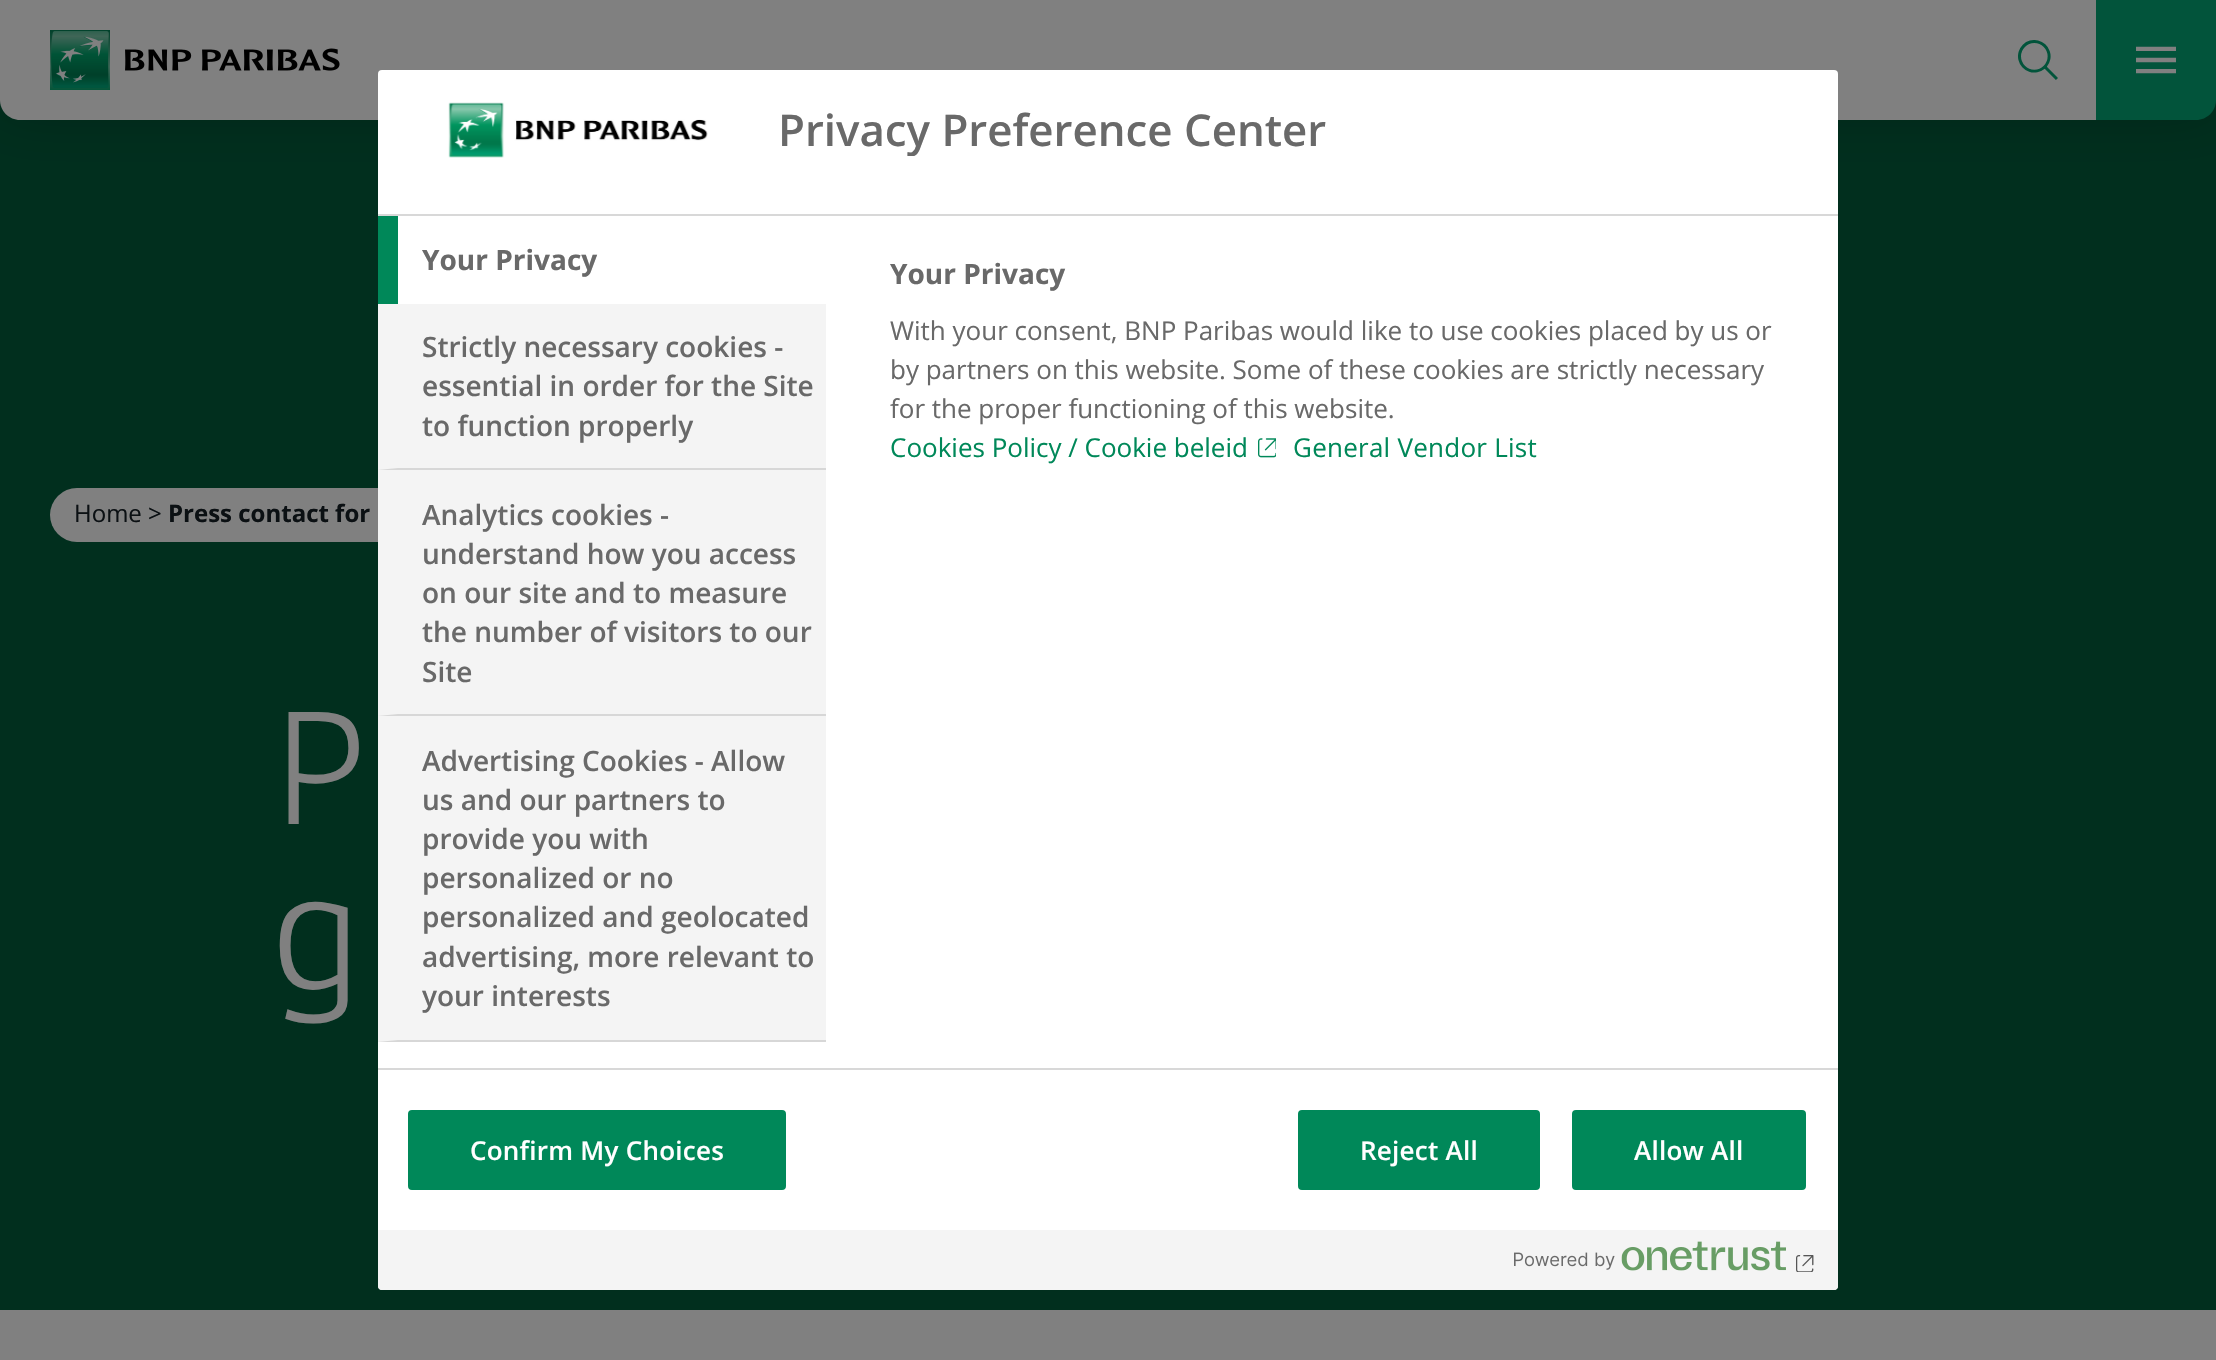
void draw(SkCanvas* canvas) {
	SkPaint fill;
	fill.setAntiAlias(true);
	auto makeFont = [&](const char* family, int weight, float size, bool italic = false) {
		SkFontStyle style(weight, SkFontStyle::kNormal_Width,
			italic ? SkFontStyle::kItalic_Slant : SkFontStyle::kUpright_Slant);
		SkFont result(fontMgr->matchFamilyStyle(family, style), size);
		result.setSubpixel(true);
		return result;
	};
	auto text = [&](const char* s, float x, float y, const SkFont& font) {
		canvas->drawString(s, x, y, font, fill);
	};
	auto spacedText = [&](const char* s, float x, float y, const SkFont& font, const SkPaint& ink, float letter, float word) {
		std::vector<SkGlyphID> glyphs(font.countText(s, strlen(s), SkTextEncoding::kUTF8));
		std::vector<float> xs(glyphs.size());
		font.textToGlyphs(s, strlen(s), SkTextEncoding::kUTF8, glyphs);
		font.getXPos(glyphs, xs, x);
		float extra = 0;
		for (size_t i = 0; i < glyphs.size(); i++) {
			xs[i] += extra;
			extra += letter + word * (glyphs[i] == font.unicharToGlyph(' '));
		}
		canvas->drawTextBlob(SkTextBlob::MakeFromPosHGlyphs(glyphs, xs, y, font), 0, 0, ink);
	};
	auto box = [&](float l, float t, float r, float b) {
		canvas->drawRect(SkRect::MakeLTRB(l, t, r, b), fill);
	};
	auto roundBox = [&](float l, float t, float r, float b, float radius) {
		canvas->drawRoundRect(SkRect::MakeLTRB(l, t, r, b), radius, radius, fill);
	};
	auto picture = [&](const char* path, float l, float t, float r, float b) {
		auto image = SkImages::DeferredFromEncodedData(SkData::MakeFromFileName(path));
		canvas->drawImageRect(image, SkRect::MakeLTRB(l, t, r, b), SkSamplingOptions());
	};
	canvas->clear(0xFF808080);
	fill.setColor(0xFF012F1E);
	box(0, 100, 2216, 1310);
	fill.setColor(0x40000000);
	fill.setMaskFilter(SkMaskFilter::MakeBlur(kNormal_SkBlurStyle, 30));
	canvas->drawRect(SkRect::MakeLTRB(0, 20, 2216, 110), fill);
	fill.setMaskFilter(nullptr);
	fill.setColor(0xFF808080);
	canvas->drawPath(SkPathBuilder().moveTo(0, 0).lineTo(2146, 0).lineTo(2146, 120).lineTo(20, 120).cubicTo(9, 120, 0, 111, 0, 100).close().detach(), fill);
	picture("image0.png", 50, 30, 340, 90);
	picture("image1.png", 2018, 40, 2058, 80);
	fill.setColor(0xFF02543B);
	canvas->drawPath(SkPathBuilder().moveTo(2096, 0).lineTo(2216, 0).lineTo(2216, 100).cubicTo(2216, 111, 2207, 120, 2196, 120).lineTo(2096, 120).close().detach(), fill);
	picture("image2.png", 2136, 46, 2176, 74);
	fill.setColor(0xFF808080);
	roundBox(50, 488, 614, 542, 27);
	fill.setColor(0xFFFFFFFF);
	roundBox(378, 70, 1838, 1290, 4);
	fill.setColor(0xFFD8D8D8);
	box(378, 214, 1838, 216);
	picture("image3.png", 448, 102, 708, 158);
	fill.setColor(0xFF008859);
	box(378, 216, 398, 304);
	fill.setColor(0xFFF4F4F4);
	box(378, 304, 826, 1042);
	fill.setColor(0xFFD7D7D7);
	canvas->drawPath(SkPathBuilder().moveTo(826, 470).lineTo(378, 470).lineTo(398, 468).lineTo(826, 468).close().detach(), fill);
	canvas->drawPath(SkPathBuilder().moveTo(826, 716).lineTo(378, 716).lineTo(398, 714).lineTo(826, 714).close().detach(), fill);
	canvas->drawPath(SkPathBuilder().moveTo(826, 1042).lineTo(378, 1042).lineTo(398, 1040).lineTo(826, 1040).close().detach(), fill);
	picture("image4.png", 1258, 438, 1276, 458);
	fill.setColor(0xFFD8D8D8);
	box(378, 1068, 1838, 1070);
	fill.setColor(0xFF008859);
	canvas->drawRoundRect(SkRect::MakeLTRB(409, 1111, 785, 1189), 3, 3, fill);
	fill.setStyle(SkPaint::kStroke_Style);
	fill.setStrokeWidth(2);
	canvas->drawRoundRect(SkRect::MakeLTRB(409, 1111, 785, 1189), 3, 3, fill);
	fill.setStyle(SkPaint::kFill_Style);
	canvas->drawRoundRect(SkRect::MakeLTRB(1299, 1111, 1539, 1189), 3, 3, fill);
	fill.setStyle(SkPaint::kStroke_Style);
	canvas->drawRoundRect(SkRect::MakeLTRB(1299, 1111, 1539, 1189), 3, 3, fill);
	fill.setStyle(SkPaint::kFill_Style);
	canvas->drawRoundRect(SkRect::MakeLTRB(1573, 1111, 1805, 1189), 3, 3, fill);
	fill.setStyle(SkPaint::kStroke_Style);
	canvas->drawRoundRect(SkRect::MakeLTRB(1573, 1111, 1805, 1189), 3, 3, fill);
	fill.setStyle(SkPaint::kFill_Style);
	fill.setColor(0xFFF4F4F4);
	canvas->drawPath(SkPathBuilder().moveTo(378, 1230).lineTo(1838, 1230).lineTo(1838, 1286).cubicTo(1838, 1288, 1836, 1290, 1834, 1290).lineTo(382, 1290).cubicTo(380, 1290, 378, 1288, 378, 1286).close().detach(), fill);
	picture("image5.png", 1514, 1241, 1786, 1271);
	picture("image6.png", 1796, 1255, 1814, 1272);
	auto font1 = makeFont("Open Sans", 400, 24);
	fill.setColor(0xFF0B1013);
	text("Home >", 74, 522, font1);
	auto font2 = makeFont("Open Sans", 700, 24);
	text("Press contact for", 168, 522, font2);
	auto font3 = makeFont("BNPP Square", 300, 160);
	fill.setColor(0xFF808080);
	text("P", 270, 824, font3);
	text("g", 270, 988, font3);
	canvas->save();
	canvas->clipRect(SkRect::MakeLTRB(778, 104, 1758, 156));
	auto font4 = makeFont("Open Sans", 600, 43.8f);
	fill.setColor(0xFF696969);
	text("Privacy Preference Center", 778, 146, font4);
	canvas->restore();
	auto font5 = makeFont("Open Sans", 700, 28);
	text("Your Privacy", 422, 270, font5);
	auto font6 = makeFont("Open Sans", 600, 28);
	text("Strictly necessary cookies -", 422, 357, font6);
	text("essential in order for the Site", 422, 396, font6);
	text("to function properly", 422, 436, font6);
	text("Analytics cookies -", 422, 525, font6);
	text("understand how you access", 422, 564, font6);
	text("on our site and to measure", 422, 603, font6);
	text("the number of visitors to our", 422, 642, font6);
	text("Site", 422, 682, font6);
	text("Advertising Cookies - Allow", 422, 771, font6);
	text("us and our partners to", 422, 810, font6);
	text("provide you with", 422, 849, font6);
	text("personalized or no", 422, 888, font6);
	text("personalized and geolocated", 422, 927, font6);
	text("advertising, more relevant to", 422, 967, font6);
	text("your interests", 422, 1006, font6);
	text("Your Privacy", 890, 284, font5);
	auto font7 = makeFont("Open Sans", 400, 26);
	text("With your consent, BNP Paribas would like to use cookies placed by us or", 890, 340, font7);
	text("by partners on this website. Some of these cookies are strictly necessary", 890, 379, font7);
	text("for the proper functioning of this website.", 890, 418, font7);
	fill.setColor(0xFF008859);
	text("Cookies Policy / Cookie beleid", 890, 457, font7);
	spacedText("General Vendor List", 1293, 457, font7, fill, 0.25f, 0);
	auto font8 = makeFont("Open Sans", 600, 26);
	fill.setColor(0xFFFFFFFF);
	spacedText("Confirm My Choices", 470, 1160, font8, fill, 0.25f, 0);
	spacedText("Reject All", 1360, 1160, font8, fill, 0.25f, 0);
	spacedText("Allow All", 1634, 1160, font8, fill, 0.25f, 0);
}
